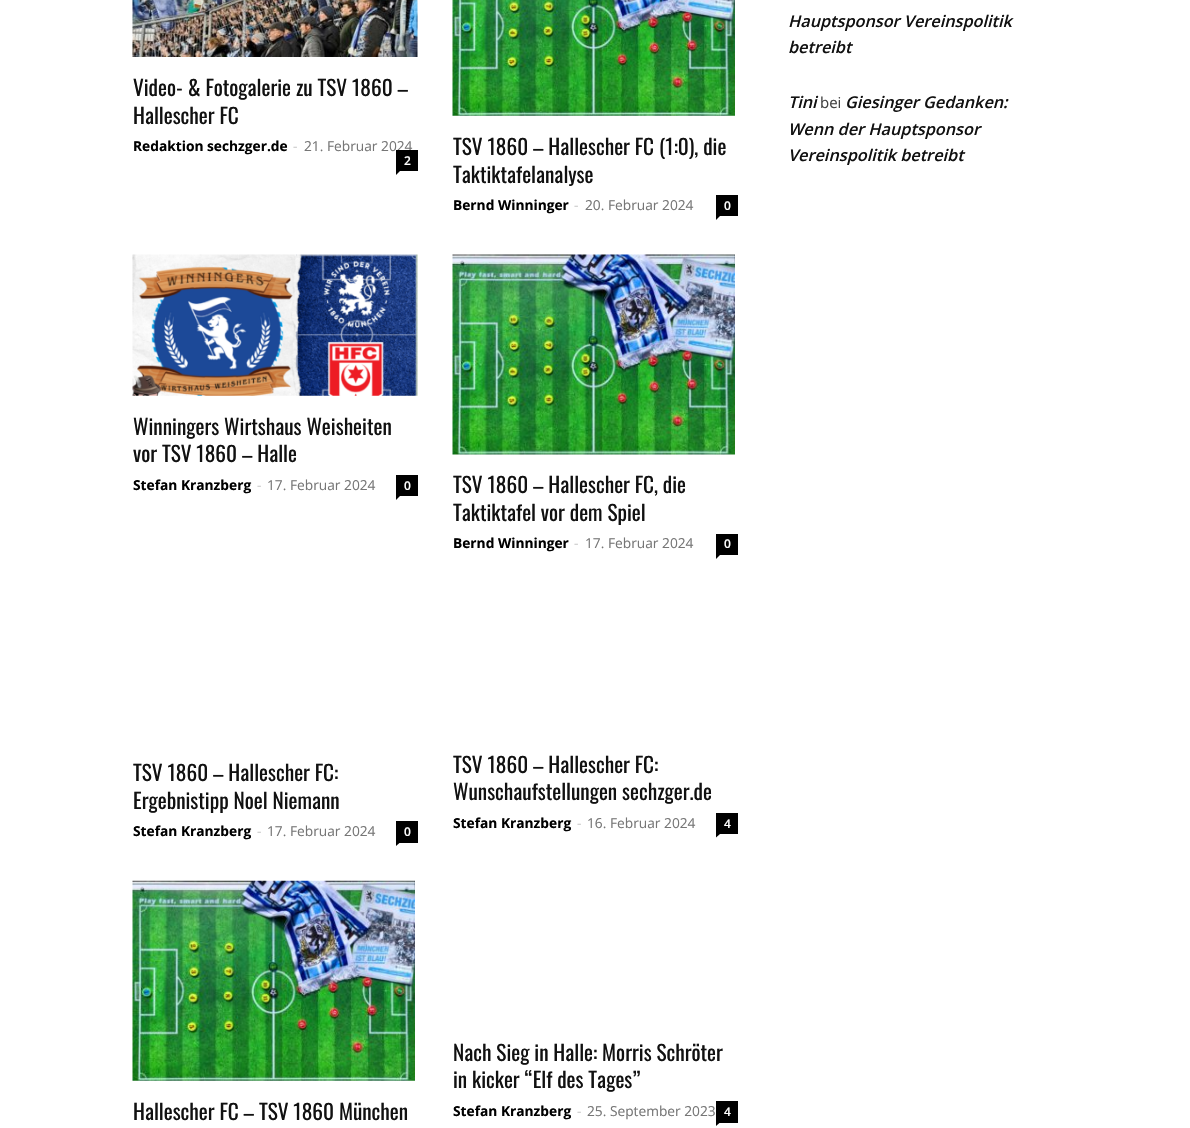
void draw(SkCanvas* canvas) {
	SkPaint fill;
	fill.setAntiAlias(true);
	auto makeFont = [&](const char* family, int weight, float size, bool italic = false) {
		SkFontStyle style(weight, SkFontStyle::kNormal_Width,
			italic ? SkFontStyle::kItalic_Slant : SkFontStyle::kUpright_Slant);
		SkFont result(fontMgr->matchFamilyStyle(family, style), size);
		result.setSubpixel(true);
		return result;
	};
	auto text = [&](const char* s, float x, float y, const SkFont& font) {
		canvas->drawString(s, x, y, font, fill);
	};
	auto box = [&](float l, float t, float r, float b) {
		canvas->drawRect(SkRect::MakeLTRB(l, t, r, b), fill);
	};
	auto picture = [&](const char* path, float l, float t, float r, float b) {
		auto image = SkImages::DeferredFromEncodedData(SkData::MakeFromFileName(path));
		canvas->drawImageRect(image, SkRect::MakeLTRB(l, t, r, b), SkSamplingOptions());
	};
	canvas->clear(0xFFFFFFFF);
	picture("image0.png", 132, 0, 418, 57);
	fill.setColor(0xFF000000);
	canvas->drawPath(SkPathBuilder().moveTo(396, 171).lineTo(400, 171).lineTo(396, 175).close().detach(), fill);
	picture("image1.png", 452, 0, 735, 116);
	box(716, 195, 738, 216);
	canvas->drawPath(SkPathBuilder().moveTo(716, 216).lineTo(720, 216).lineTo(716, 220).close().detach(), fill);
	picture("image2.png", 132, 254, 418, 396);
	box(396, 475, 418, 496);
	canvas->drawPath(SkPathBuilder().moveTo(396, 496).lineTo(400, 496).lineTo(396, 500).close().detach(), fill);
	picture("image3.png", 452, 254, 735, 455);
	box(716, 534, 738, 555);
	canvas->drawPath(SkPathBuilder().moveTo(716, 555).lineTo(720, 555).lineTo(716, 559).close().detach(), fill);
	box(396, 821, 418, 843);
	canvas->drawPath(SkPathBuilder().moveTo(396, 842.5f).lineTo(400, 842.5f).lineTo(396, 846).close().detach(), fill);
	box(716, 813, 738, 834);
	canvas->drawPath(SkPathBuilder().moveTo(716, 834).lineTo(720, 834).lineTo(716, 837.5f).close().detach(), fill);
	picture("image4.png", 132, 880, 415, 1081);
	box(716, 1101, 738, 1123);
	canvas->drawPath(SkPathBuilder().moveTo(716, 1122.5f).lineTo(720, 1122.5f).lineTo(716, 1126).close().detach(), fill);
	auto font1 = makeFont("Oswald", 400, 21.25f);
	fill.setColor(0xFF111111);
	text("Video- & Fotogalerie zu TSV 1860 –", 133, 96, font1);
	text("Hallescher FC", 133, 124, font1);
	auto font2 = makeFont("Open Sans", 700, 13.75f);
	fill.setColor(0xFF000000);
	text("Redaktion sechzger.de", 133, 151, font2);
	auto font3 = makeFont("Open Sans", 400, 13.75f);
	fill.setColor(0xFFCCCCCC);
	text("-", 293, 151, font3);
	fill.setColor(0xFF767676);
	text("21. Februar 2024", 304, 151, font3);
	fill.setColor(0xFF000000);
	box(396, 150, 418, 171);
	auto font4 = makeFont("Open Sans", 600, 12);
	fill.setColor(0xFFFFFFFF);
	text("2", 404, 165, font4);
	fill.setColor(0xFF111111);
	text("TSV 1860 – Hallescher FC (1:0), die", 453, 155, font1);
	text("Taktiktafelanalyse", 453, 183, font1);
	fill.setColor(0xFF000000);
	text("Bernd Winninger", 453, 210, font2);
	fill.setColor(0xFFCCCCCC);
	text("-", 574, 210, font3);
	fill.setColor(0xFF767676);
	text("20. Februar 2024", 585, 210, font3);
	fill.setColor(0xFFFFFFFF);
	text("0", 724, 210, font4);
	fill.setColor(0xFF111111);
	text("Winningers Wirtshaus Weisheiten", 133, 435, font1);
	text("vor TSV 1860 – Halle", 133, 462, font1);
	fill.setColor(0xFF000000);
	text("Stefan Kranzberg", 133, 490, font2);
	fill.setColor(0xFFCCCCCC);
	text("-", 257, 490, font3);
	fill.setColor(0xFF767676);
	text("17. Februar 2024", 267, 490, font3);
	fill.setColor(0xFFFFFFFF);
	text("0", 404, 490, font4);
	fill.setColor(0xFF111111);
	text("TSV 1860 – Hallescher FC, die", 453, 493, font1);
	text("Taktiktafel vor dem Spiel", 453, 521, font1);
	fill.setColor(0xFF000000);
	text("Bernd Winninger", 453, 548, font2);
	fill.setColor(0xFFCCCCCC);
	text("-", 574, 548, font3);
	fill.setColor(0xFF767676);
	text("17. Februar 2024", 585, 548, font3);
	fill.setColor(0xFFFFFFFF);
	text("0", 724, 548, font4);
	fill.setColor(0xFF111111);
	text("TSV 1860 – Hallescher FC:", 133, 781, font1);
	text("Ergebnistipp Noel Niemann", 133, 809, font1);
	fill.setColor(0xFF000000);
	text("Stefan Kranzberg", 133, 836, font2);
	fill.setColor(0xFFCCCCCC);
	text("-", 257, 836, font3);
	fill.setColor(0xFF767676);
	text("17. Februar 2024", 267, 836, font3);
	fill.setColor(0xFFFFFFFF);
	text("0", 404, 836, font4);
	fill.setColor(0xFF111111);
	text("TSV 1860 – Hallescher FC:", 453, 773, font1);
	text("Wunschaufstellungen sechzger.de", 453, 800, font1);
	fill.setColor(0xFF000000);
	text("Stefan Kranzberg", 453, 828, font2);
	fill.setColor(0xFFCCCCCC);
	text("-", 577, 828, font3);
	fill.setColor(0xFF767676);
	text("16. Februar 2024", 587, 828, font3);
	fill.setColor(0xFFFFFFFF);
	text("4", 724, 828, font4);
	fill.setColor(0xFF111111);
	text("Hallescher FC – TSV 1860 München", 133, 1120, font1);
	text("Nach Sieg in Halle: Morris Schröter", 453, 1061, font1);
	text("in kicker “Elf des Tages”", 453, 1088, font1);
	fill.setColor(0xFF000000);
	text("Stefan Kranzberg", 453, 1116, font2);
	fill.setColor(0xFFCCCCCC);
	text("-", 577, 1116, font3);
	fill.setColor(0xFF767676);
	text("25. September 2023", 587, 1116, font3);
	fill.setColor(0xFFFFFFFF);
	text("4", 724, 1116, font4);
	auto font5 = makeFont("Open Sans", 600, 16.25f, true);
	fill.setColor(0xFF111111);
	text("Hauptsponsor Vereinspolitik", 788, 27, font5);
	text("betreibt", 788, 53, font5);
	text("Tini", 788, 108, font5);
	auto font6 = makeFont("Open Sans", 400, 15);
	fill.setColor(0xFF444444);
	text("bei", 820, 108, font6);
	fill.setColor(0xFF111111);
	text("Giesinger Gedanken:", 845, 108, font5);
	text("Wenn der Hauptsponsor", 788, 135, font5);
	text("Vereinspolitik betreibt", 788, 161, font5);
}
